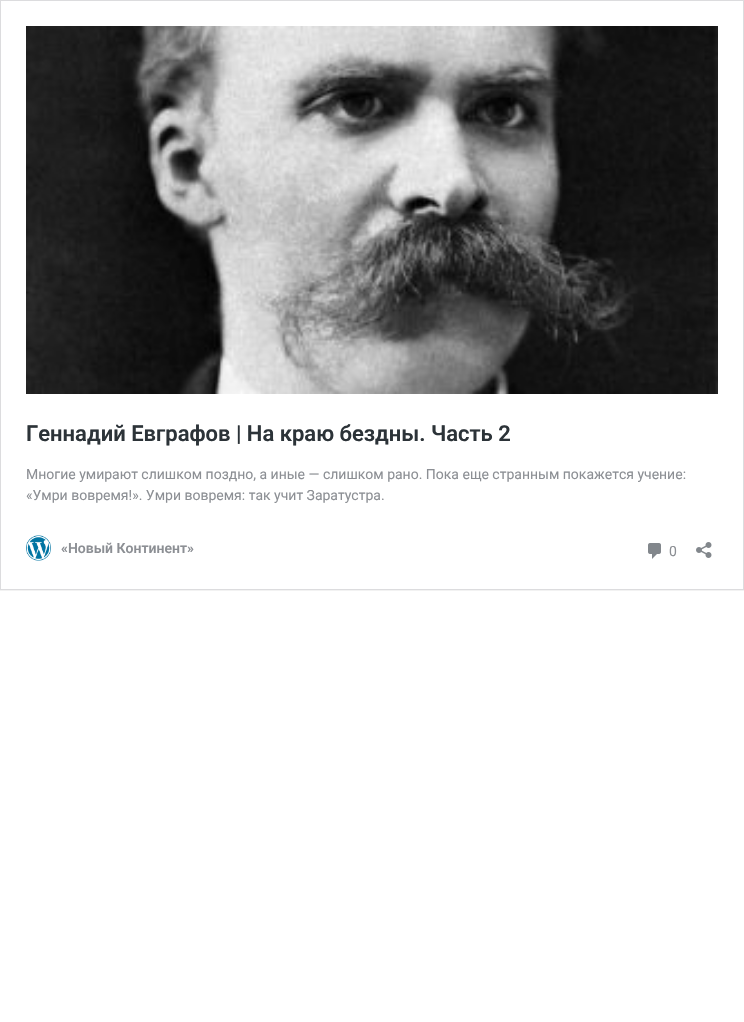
void draw(SkCanvas* canvas) {
	SkPaint fill;
	fill.setAntiAlias(true);
	auto makeFont = [&](const char* family, int weight, float size, bool italic = false) {
		SkFontStyle style(weight, SkFontStyle::kNormal_Width,
			italic ? SkFontStyle::kItalic_Slant : SkFontStyle::kUpright_Slant);
		SkFont result(fontMgr->matchFamilyStyle(family, style), size);
		result.setSubpixel(true);
		return result;
	};
	auto text = [&](const char* s, float x, float y, const SkFont& font) {
		canvas->drawString(s, x, y, font, fill);
	};
	auto picture = [&](const char* path, float l, float t, float r, float b) {
		auto image = SkImages::DeferredFromEncodedData(SkData::MakeFromFileName(path));
		canvas->drawImageRect(image, SkRect::MakeLTRB(l, t, r, b), SkSamplingOptions());
	};
	canvas->clear(0xFFFFFFFF);
	canvas->save();
	canvas->clipRect(SkRect::MakeLTRB(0, 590, 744, 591));
	fill.setColor(0x0D000000);
	fill.setMaskFilter(SkMaskFilter::MakeBlur(kNormal_SkBlurStyle, 0.5f));
	canvas->drawRect(SkRect::MakeLTRB(0, 1, 744, 591), fill);
	fill.setMaskFilter(nullptr);
	canvas->restore();
	fill.setStyle(SkPaint::kStroke_Style);
	fill.setStrokeWidth(1);
	fill.setColor(0xFFDCDCDE);
	canvas->drawRect(SkRect::MakeLTRB(0.5f, 0.5f, 743.5f, 589.5f), fill);
	picture("image0.png", 26, 26, 718, 394);
	picture("image1.png", 26, 535, 51, 561);
	picture("image2.png", 648, 543, 661, 559);
	picture("image3.png", 696, 542, 712, 558);
	auto font1 = makeFont("Roboto", 600, 22);
	fill.setStyle(SkPaint::kFill_Style);
	fill.setColor(0xFF2C3338);
	text("Геннадий Евграфов | На краю бездны. Часть 2", 26, 441, font1);
	auto font2 = makeFont("Roboto", 400, 14);
	fill.setColor(0xFF8C8F94);
	text("Многие умирают слишком поздно, а иные — слишком рано. Пока еще странным покажется учение:", 26, 479, font2);
	text("«Умри вовремя!». Умри вовремя: так учит Заратустра.", 26, 500, font2);
	auto font3 = makeFont("Roboto", 600, 14);
	text("«Новый Континент»", 61, 553, font3);
	text("0", 669, 556, font2);
}
